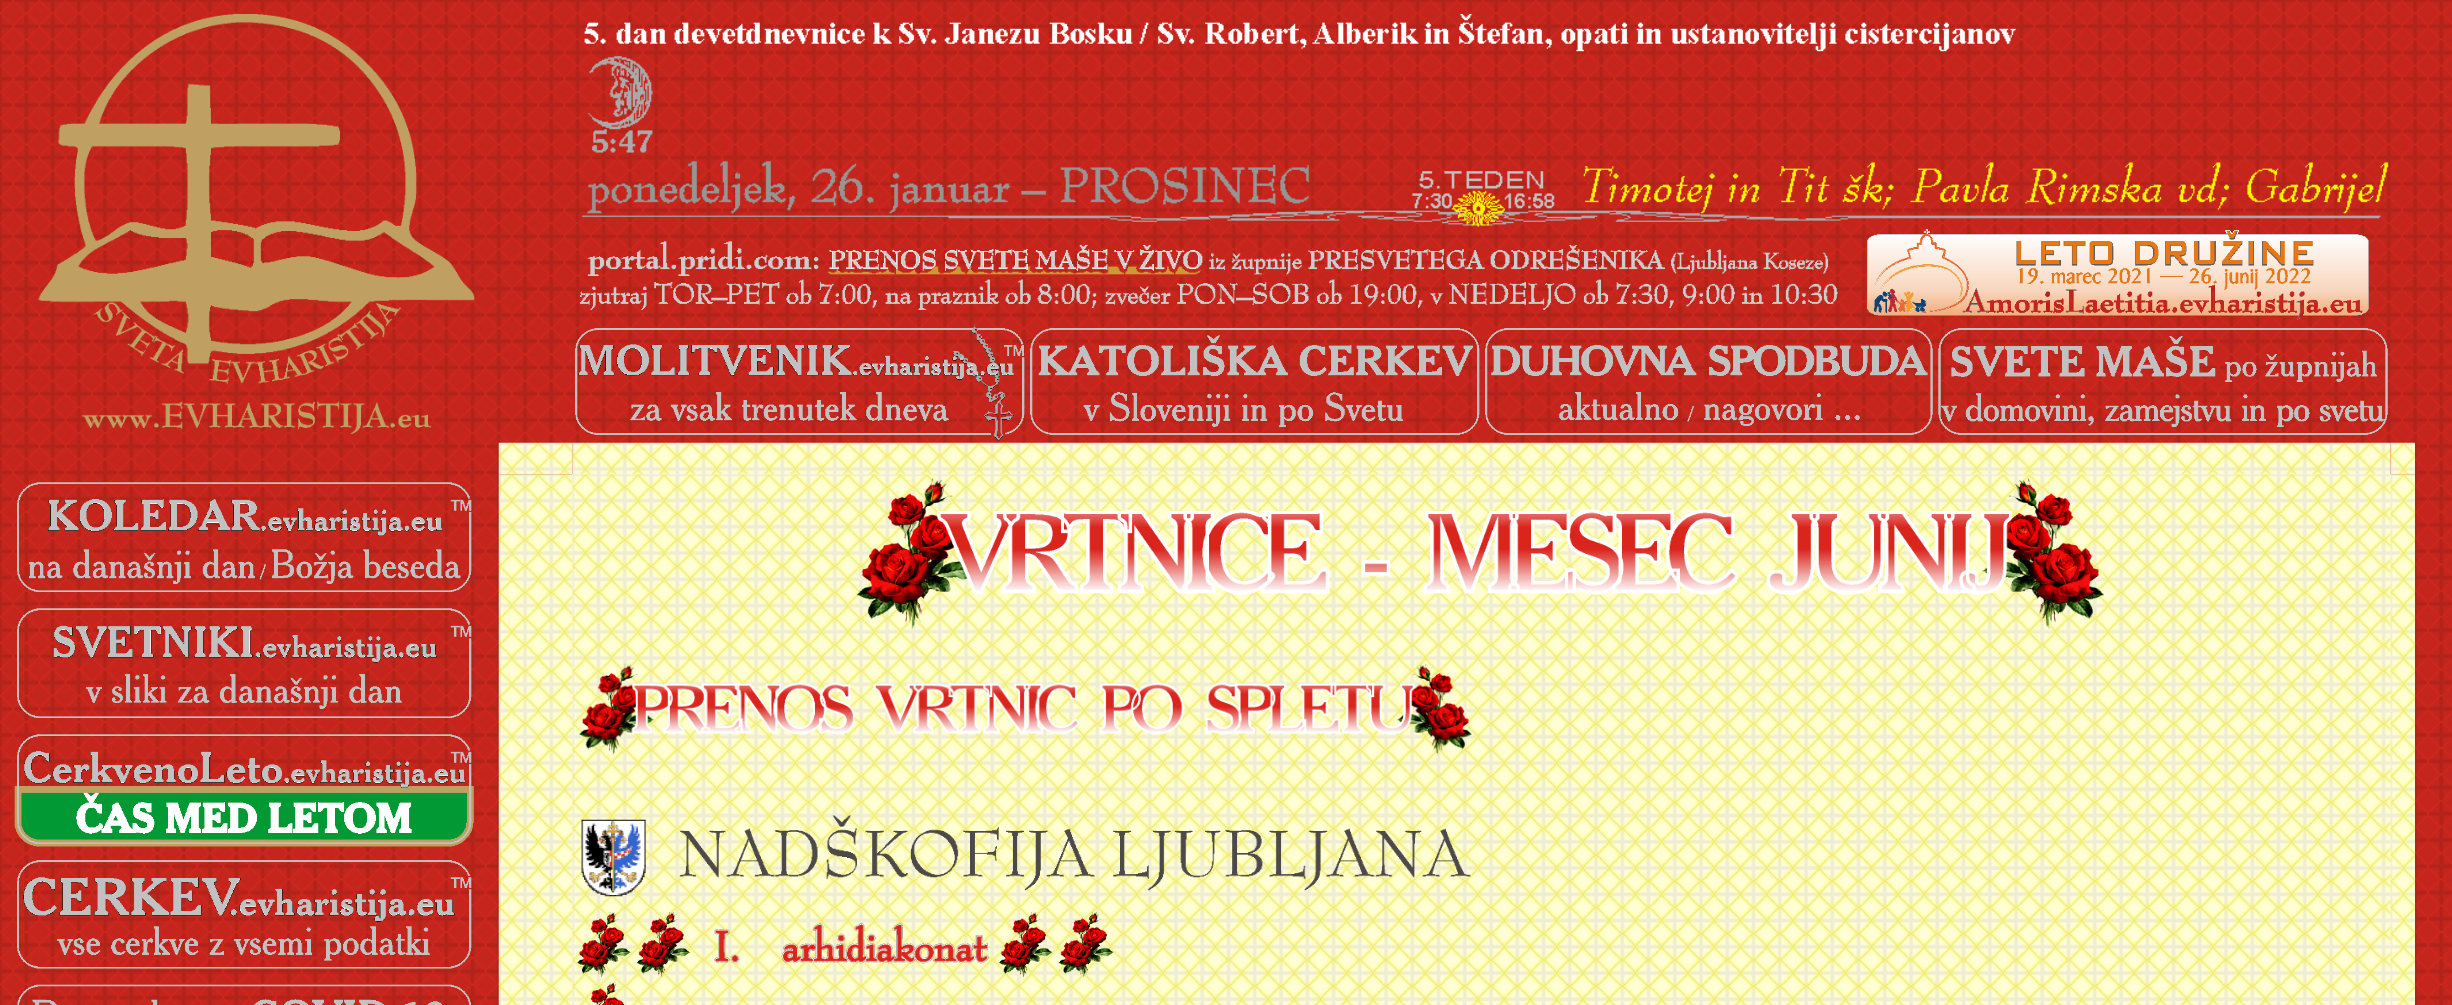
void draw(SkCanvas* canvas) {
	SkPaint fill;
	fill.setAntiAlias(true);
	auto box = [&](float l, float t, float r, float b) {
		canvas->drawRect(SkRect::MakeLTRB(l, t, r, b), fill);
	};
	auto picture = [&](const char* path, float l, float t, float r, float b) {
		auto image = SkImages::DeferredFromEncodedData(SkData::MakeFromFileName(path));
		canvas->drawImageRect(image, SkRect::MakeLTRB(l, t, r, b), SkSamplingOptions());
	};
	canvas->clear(0xFFFFFFFF);
	picture("image0.png", 0, 0, 2452, 1005);
	picture("image1.png", 38, 14, 475, 434);
	picture("image2.png", 582, 14, 2389, 227);
	picture("image3.png", 580, 241, 1838, 310);
	picture("image4.png", 1867, 229, 2369, 320);
	picture("image5.png", 575, 323, 1025, 441);
	picture("image6.png", 1030, 328, 1480, 435);
	picture("image7.png", 1485, 328, 1933, 435);
	picture("image8.png", 1938, 328, 2388, 435);
	picture("image9.png", 498, 442, 573, 475);
	picture("image10.png", 572, 442, 2391, 474);
	picture("image11.png", 2390, 442, 2415, 475);
	picture("image12.png", 17, 482, 472, 592);
	picture("image13.png", 17, 608, 472, 718);
	picture("image14.png", 14, 734, 474, 847);
	picture("image15.png", 17, 860, 472, 969);
	picture("image16.png", 17, 984, 471, 1005);
	picture("image17.png", 498, 474, 572, 1005);
	fill.setColor(0xFFFFFFFF);
	box(572, 474, 2391, 1005);
	picture("image18.png", 572, 474, 2391, 1005);
	picture("image19.png", 856, 478, 2104, 630);
	picture("image20.png", 579, 663, 1472, 755);
	picture("image21.png", 581, 815, 1471, 897);
	picture("image22.png", 577, 911, 631, 978);
	picture("image23.png", 636, 912, 691, 977);
	picture("image24.png", 714, 923, 989, 964);
	picture("image25.png", 999, 911, 1053, 978);
	picture("image26.png", 1058, 912, 1114, 978);
	picture("image27.png", 590, 981, 624, 1005);
	picture("image28.png", 2390, 474, 2415, 1005);
}
